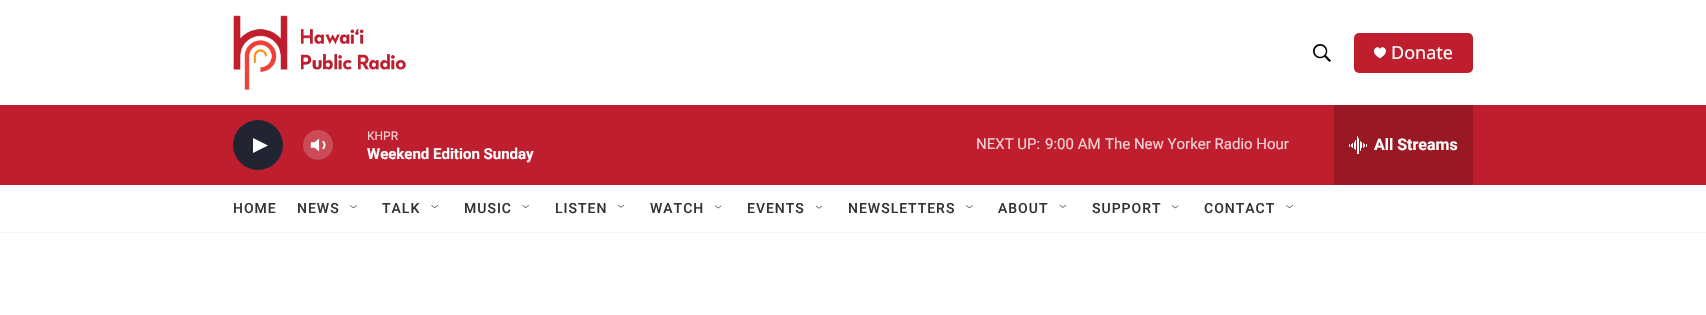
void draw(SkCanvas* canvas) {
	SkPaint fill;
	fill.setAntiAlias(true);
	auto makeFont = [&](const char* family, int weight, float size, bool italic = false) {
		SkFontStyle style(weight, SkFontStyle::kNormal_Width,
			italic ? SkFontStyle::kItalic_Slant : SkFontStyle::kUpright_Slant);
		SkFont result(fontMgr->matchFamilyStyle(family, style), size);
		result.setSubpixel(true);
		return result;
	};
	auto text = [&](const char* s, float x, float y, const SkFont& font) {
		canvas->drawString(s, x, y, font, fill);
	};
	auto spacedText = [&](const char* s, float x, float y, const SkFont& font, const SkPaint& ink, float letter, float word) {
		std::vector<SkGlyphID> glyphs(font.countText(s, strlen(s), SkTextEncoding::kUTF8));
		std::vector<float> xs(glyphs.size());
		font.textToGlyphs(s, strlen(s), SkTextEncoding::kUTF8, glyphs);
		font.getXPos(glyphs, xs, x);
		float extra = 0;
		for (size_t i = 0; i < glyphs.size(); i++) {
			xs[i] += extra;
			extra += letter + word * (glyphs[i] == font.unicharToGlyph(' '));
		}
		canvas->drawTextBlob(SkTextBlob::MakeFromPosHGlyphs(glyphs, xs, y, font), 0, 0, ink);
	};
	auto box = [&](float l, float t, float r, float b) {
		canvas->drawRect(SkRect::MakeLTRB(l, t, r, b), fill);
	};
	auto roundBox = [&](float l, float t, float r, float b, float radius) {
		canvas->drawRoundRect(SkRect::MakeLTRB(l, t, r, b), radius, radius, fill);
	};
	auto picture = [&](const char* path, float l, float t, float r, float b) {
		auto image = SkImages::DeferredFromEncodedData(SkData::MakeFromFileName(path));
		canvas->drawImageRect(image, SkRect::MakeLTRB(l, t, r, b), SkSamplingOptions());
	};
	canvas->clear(0xFFFFFFFF);
	fill.setColor(0xFFF5F5F5);
	box(0, 232, 1706, 233);
	picture("image0.png", 233, 15, 406, 90);
	picture("image1.png", 1313, 44, 1331, 62);
	fill.setColor(0xFFBE1E2D);
	roundBox(1354, 33, 1473, 73, 5);
	fill.setColor(0xFFFFFFFF);
	canvas->drawPath(SkPathBuilder().moveTo(1380, 49).cubicTo(1378, 44, 1367.5f, 51, 1380, 58.5f).cubicTo(1392.5f, 51, 1382, 44, 1380, 49).close().detach(), fill);
	fill.setColor(0xFFBE1E2D);
	box(0, 105, 1706, 185);
	fill.setColor(0xFF222431);
	canvas->drawCircle(258, 145, 25, fill);
	fill.setColor(0xFFFFFFFF);
	canvas->drawPath(SkPathBuilder().moveTo(253, 138).lineTo(268, 145.5f).lineTo(253, 153).close().detach(), fill);
	picture("image2.png", 310, 138, 326, 152);
	fill.setColor(0x33FFFFFF);
	canvas->drawCircle(318, 145, 15, fill);
	fill.setColor(0xFF981824);
	box(1334, 105, 1473, 185);
	picture("image3.png", 1349, 136, 1367, 154);
	picture("image4.png", 350, 205, 357, 209);
	picture("image5.png", 431, 204, 438, 208);
	picture("image6.png", 522, 205, 529, 208);
	picture("image7.png", 617, 204, 625, 208);
	picture("image8.png", 715, 205, 722, 209);
	picture("image9.png", 815, 205, 823, 209);
	picture("image10.png", 966, 205, 973, 209);
	picture("image11.png", 1059, 204, 1066, 208);
	picture("image12.png", 1172, 205, 1179, 209);
	picture("image13.png", 1286, 205, 1293, 209);
	auto font1 = makeFont("Noto Sans", 400, 18);
	fill.setColor(0xFFFFFFFF);
	text("Donate", 1391, 59, font1);
	auto font2 = makeFont("Roboto", 400, 12);
	fill.setColor(0xFFF2D2D5);
	text("KHPR", 367, 140, font2);
	auto font3 = makeFont("Roboto", 700, 15);
	fill.setColor(0xFFFFFFFF);
	text("Weekend Edition Sunday", 367, 159, font3);
	auto font4 = makeFont("Roboto", 400, 15);
	fill.setColor(0xFFF2D2D5);
	text("NEXT UP:", 976, 149, font4);
	text("9:00 AM", 1045, 149, font4);
	text("The New Yorker Radio Hour", 1105, 149, font4);
	auto font5 = makeFont("Roboto", 700, 16);
	fill.setColor(0xFFFFFFFF);
	text("All Streams", 1374, 150, font5);
	auto font6 = makeFont("Roboto", 500, 14);
	fill.setColor(0xFF333333);
	spacedText("HOME", 233, 213, font6, fill, 1, 0);
	spacedText("NEWS", 297, 213, font6, fill, 1, 0);
	spacedText("TALK", 382, 213, font6, fill, 1, 0);
	spacedText("MUSIC", 464, 213, font6, fill, 1, 0);
	spacedText("LISTEN", 555, 213, font6, fill, 1, 0);
	spacedText("WATCH", 650, 213, font6, fill, 1, 0);
	spacedText("EVENTS", 747, 213, font6, fill, 1, 0);
	spacedText("NEWSLETTERS", 848, 213, font6, fill, 1, 0);
	spacedText("ABOUT", 998, 213, font6, fill, 1, 0);
	spacedText("SUPPORT", 1092, 213, font6, fill, 1, 0);
	spacedText("CONTACT", 1204, 213, font6, fill, 1, 0);
}
